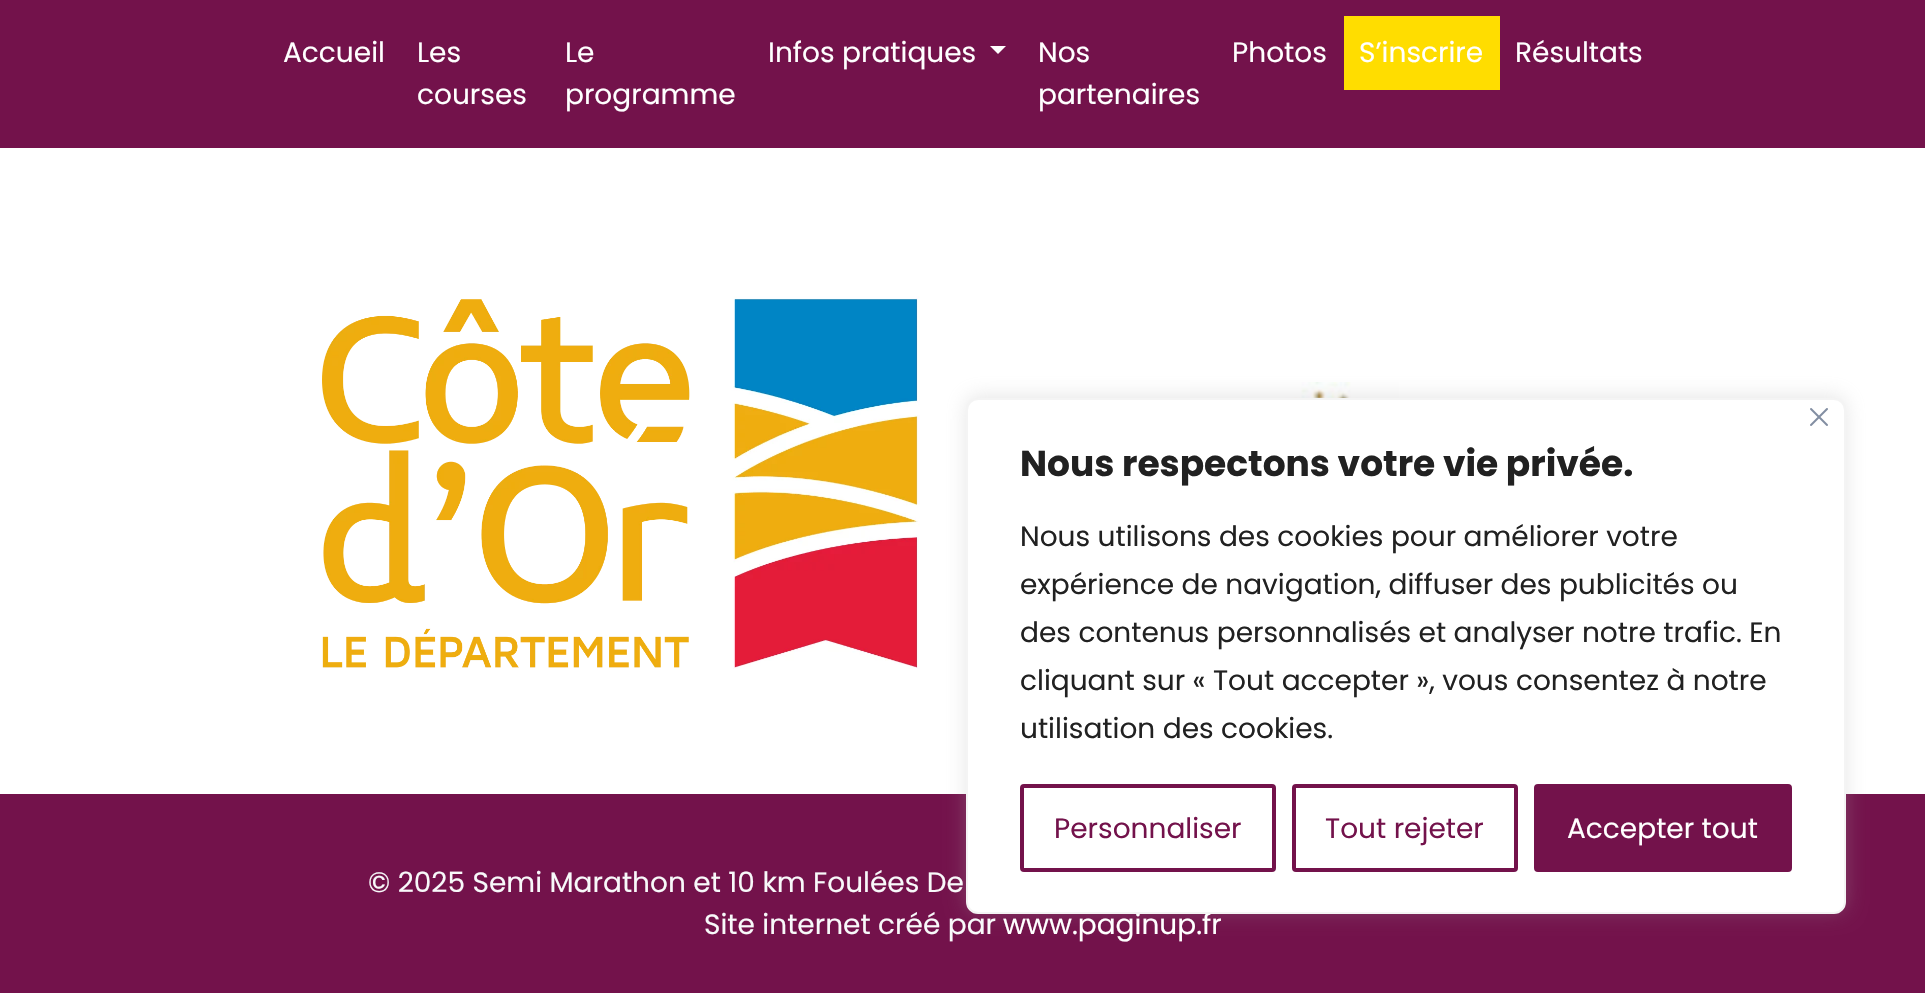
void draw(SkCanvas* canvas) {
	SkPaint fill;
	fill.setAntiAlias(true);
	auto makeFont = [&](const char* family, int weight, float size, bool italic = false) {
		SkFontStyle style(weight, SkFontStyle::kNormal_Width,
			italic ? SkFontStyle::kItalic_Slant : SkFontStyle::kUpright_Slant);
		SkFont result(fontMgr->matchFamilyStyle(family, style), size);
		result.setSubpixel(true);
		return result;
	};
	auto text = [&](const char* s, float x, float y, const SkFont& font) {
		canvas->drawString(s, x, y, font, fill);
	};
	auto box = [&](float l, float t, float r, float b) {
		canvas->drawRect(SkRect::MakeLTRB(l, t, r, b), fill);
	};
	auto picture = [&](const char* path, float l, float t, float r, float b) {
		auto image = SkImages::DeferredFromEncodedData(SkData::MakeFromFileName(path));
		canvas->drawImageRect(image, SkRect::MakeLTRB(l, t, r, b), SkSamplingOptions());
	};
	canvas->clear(0xFFFFFFFF);
	fill.setColor(0xFF73124B);
	box(0, 0, 1925, 148);
	fill.setColor(0xFFFFFFFF);
	canvas->drawPath(SkPathBuilder().moveTo(990, 46).lineTo(1006, 46).lineTo(998, 54).close().detach(), fill);
	fill.setColor(0xFFFFDD00);
	box(1344, 16, 1500, 90);
	picture("image0.png", 322, 296, 920, 669);
	picture("image1.png", 1190, 382, 1399, 398);
	fill.setColor(0xFF73124B);
	box(0, 794, 1925, 993);
	fill.setColor(0x4DACABAB);
	fill.setMaskFilter(SkMaskFilter::MakeBlur(kNormal_SkBlurStyle, 10));
	canvas->drawRoundRect(SkRect::MakeLTRB(966, 396, 1846, 912), 12, 12, fill);
	fill.setMaskFilter(nullptr);
	auto font1 = makeFont("Poppins", 400, 28);
	fill.setColor(0xFFFFFFFF);
	text("Accueil", 283, 62, font1);
	text("Les", 417, 62, font1);
	text("courses", 417, 104, font1);
	text("Le", 565, 62, font1);
	text("programme", 565, 104, font1);
	text("Infos pratiques", 768, 62, font1);
	text("Nos", 1038, 62, font1);
	text("partenaires", 1038, 104, font1);
	text("Photos", 1232, 62, font1);
	text("S’inscrire", 1359, 62, font1);
	text("Résultats", 1515, 62, font1);
	fill.setColor(0xFFF8F9FA);
	text("© 2025 Semi Marathon et 10 km Foulées De", 368, 892, font1);
	text("Site internet créé par", 704, 934, font1);
	fill.setColor(0xFFFFFFFF);
	text("www.paginup.fr", 1003, 934, font1);
	canvas->drawRoundRect(SkRect::MakeLTRB(967, 399, 1845, 913), 11, 11, fill);
	fill.setStyle(SkPaint::kStroke_Style);
	fill.setStrokeWidth(2);
	fill.setColor(0xFFF4F4F4);
	canvas->drawRoundRect(SkRect::MakeLTRB(967, 399, 1845, 913), 11, 11, fill);
	picture("image2.png", 1810, 408, 1828, 426);
	auto font2 = makeFont("Poppins", 700, 36);
	fill.setStyle(SkPaint::kFill_Style);
	fill.setColor(0xFF212121);
	text("Nous respectons votre vie privée.", 1020, 476, font2);
	text("Nous utilisons des cookies pour améliorer votre", 1020, 546, font1);
	text("expérience de navigation, diffuser des publicités ou", 1020, 594, font1);
	text("des contenus personnalisés et analyser notre trafic. En", 1020, 642, font1);
	text("cliquant sur « Tout accepter », vous consentez à notre", 1020, 690, font1);
	text("utilisation des cookies.", 1020, 738, font1);
	fill.setStyle(SkPaint::kStroke_Style);
	fill.setStrokeWidth(4);
	fill.setColor(0xFF73124B);
	canvas->drawRoundRect(SkRect::MakeLTRB(1022, 786, 1274, 870), 2, 2, fill);
	fill.setStyle(SkPaint::kFill_Style);
	text("Personnaliser", 1054, 838, font1);
	fill.setStyle(SkPaint::kStroke_Style);
	canvas->drawRoundRect(SkRect::MakeLTRB(1294, 786, 1516, 870), 2, 2, fill);
	fill.setStyle(SkPaint::kFill_Style);
	text("Tout rejeter", 1325, 838, font1);
	canvas->drawRoundRect(SkRect::MakeLTRB(1536, 786, 1790, 870), 2, 2, fill);
	fill.setStyle(SkPaint::kStroke_Style);
	canvas->drawRoundRect(SkRect::MakeLTRB(1536, 786, 1790, 870), 2, 2, fill);
	fill.setStyle(SkPaint::kFill_Style);
	fill.setColor(0xFFFFFFFF);
	text("Accepter tout", 1567, 838, font1);
}
